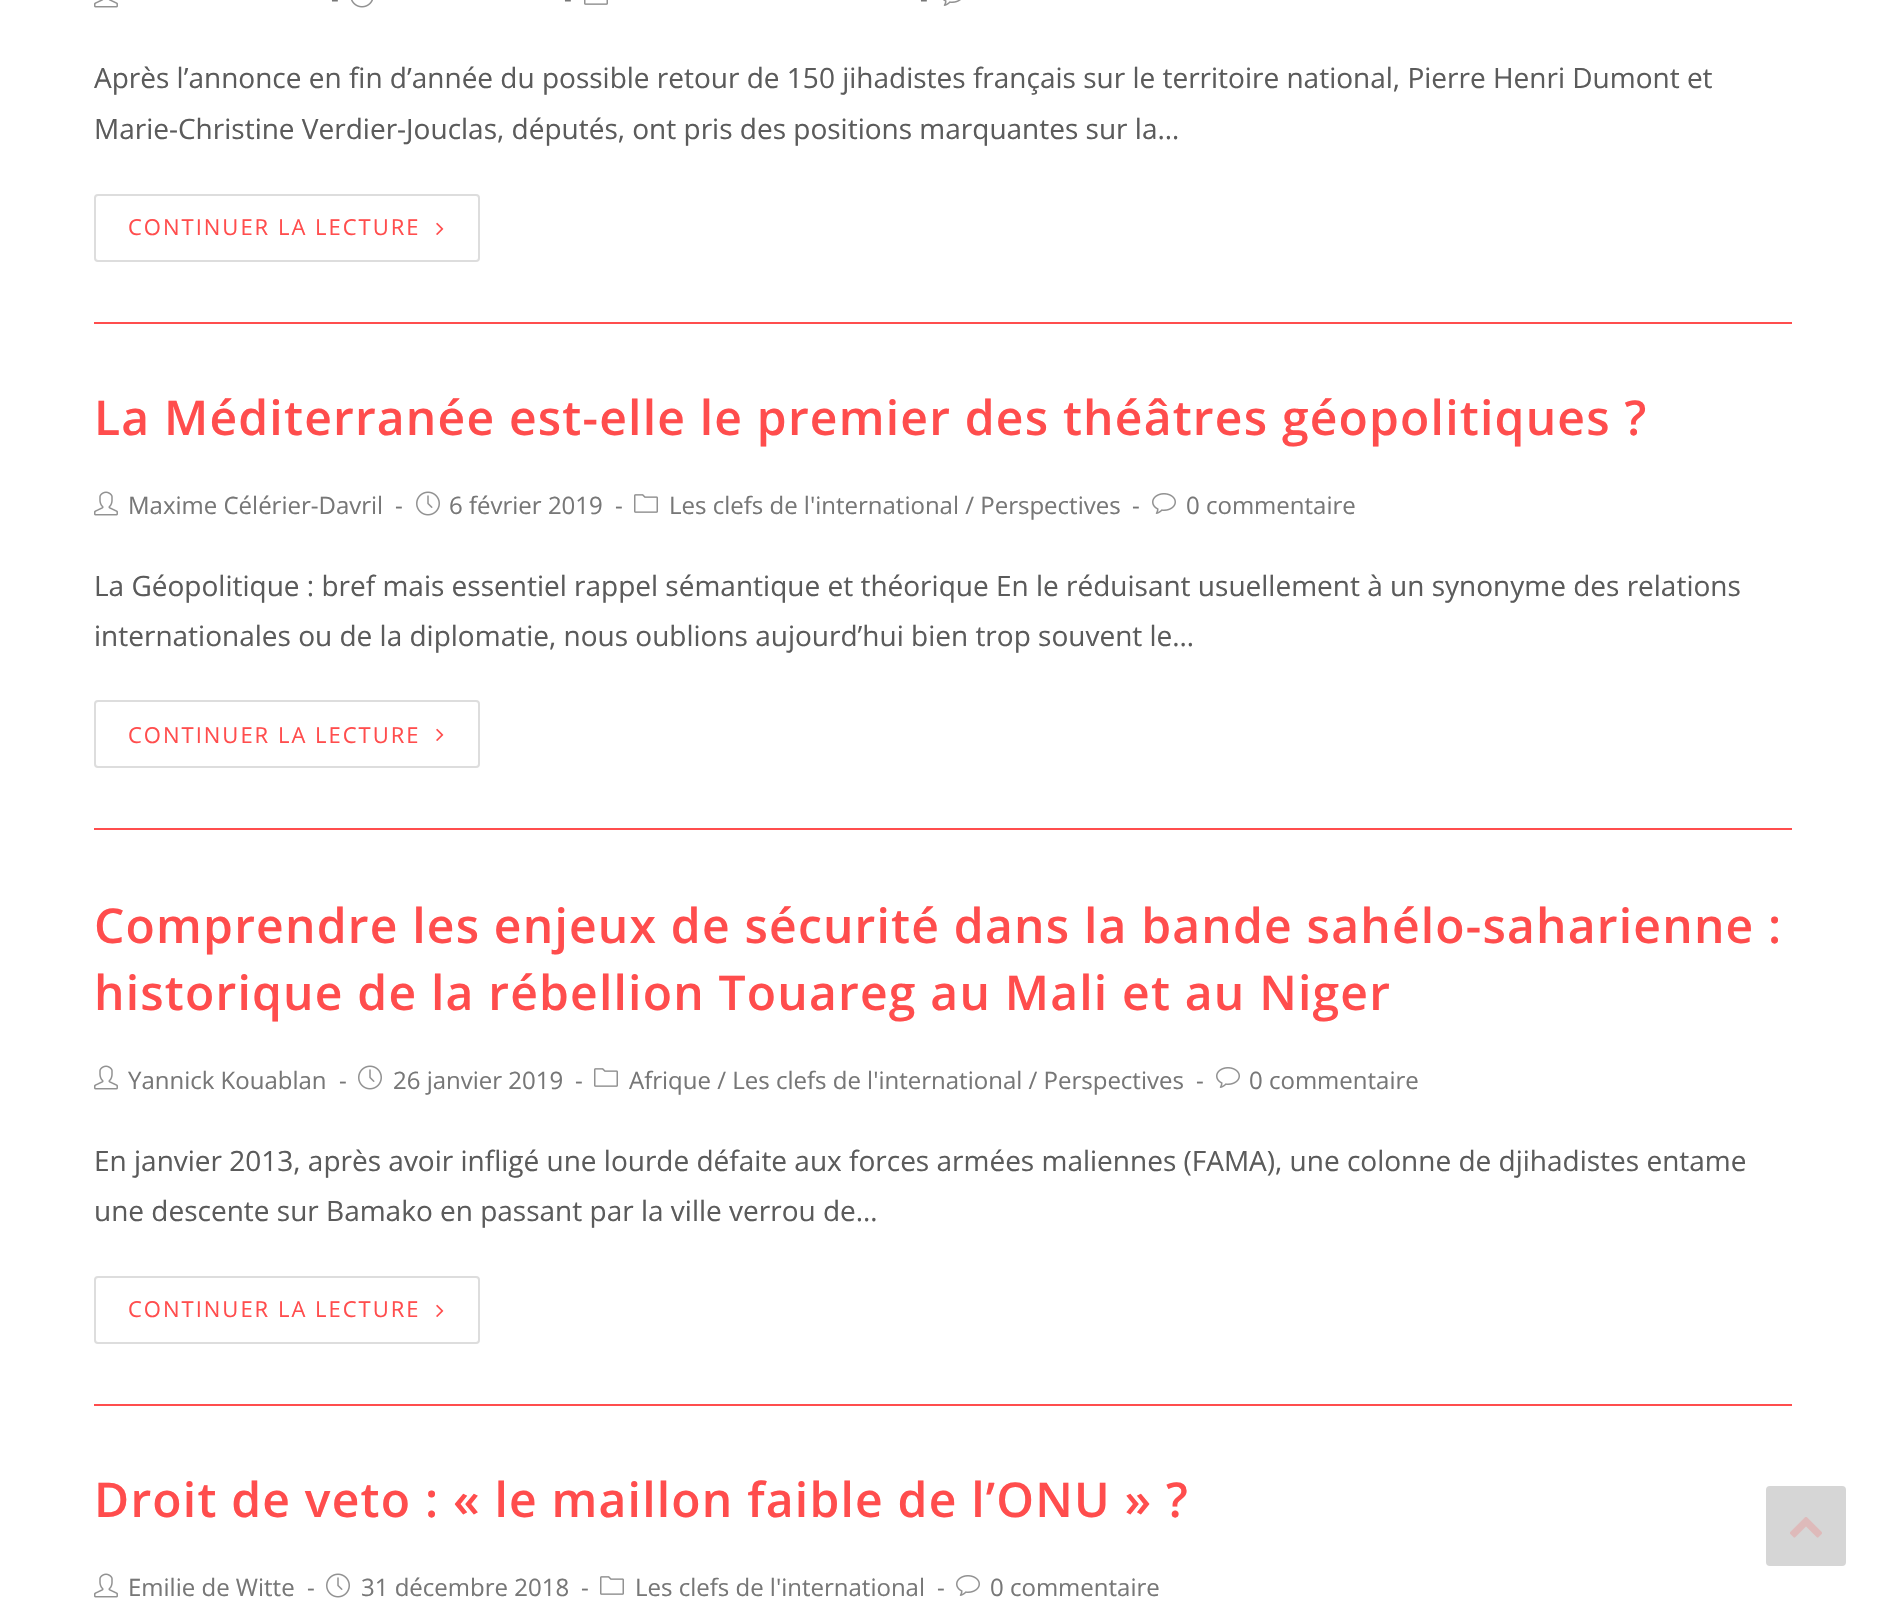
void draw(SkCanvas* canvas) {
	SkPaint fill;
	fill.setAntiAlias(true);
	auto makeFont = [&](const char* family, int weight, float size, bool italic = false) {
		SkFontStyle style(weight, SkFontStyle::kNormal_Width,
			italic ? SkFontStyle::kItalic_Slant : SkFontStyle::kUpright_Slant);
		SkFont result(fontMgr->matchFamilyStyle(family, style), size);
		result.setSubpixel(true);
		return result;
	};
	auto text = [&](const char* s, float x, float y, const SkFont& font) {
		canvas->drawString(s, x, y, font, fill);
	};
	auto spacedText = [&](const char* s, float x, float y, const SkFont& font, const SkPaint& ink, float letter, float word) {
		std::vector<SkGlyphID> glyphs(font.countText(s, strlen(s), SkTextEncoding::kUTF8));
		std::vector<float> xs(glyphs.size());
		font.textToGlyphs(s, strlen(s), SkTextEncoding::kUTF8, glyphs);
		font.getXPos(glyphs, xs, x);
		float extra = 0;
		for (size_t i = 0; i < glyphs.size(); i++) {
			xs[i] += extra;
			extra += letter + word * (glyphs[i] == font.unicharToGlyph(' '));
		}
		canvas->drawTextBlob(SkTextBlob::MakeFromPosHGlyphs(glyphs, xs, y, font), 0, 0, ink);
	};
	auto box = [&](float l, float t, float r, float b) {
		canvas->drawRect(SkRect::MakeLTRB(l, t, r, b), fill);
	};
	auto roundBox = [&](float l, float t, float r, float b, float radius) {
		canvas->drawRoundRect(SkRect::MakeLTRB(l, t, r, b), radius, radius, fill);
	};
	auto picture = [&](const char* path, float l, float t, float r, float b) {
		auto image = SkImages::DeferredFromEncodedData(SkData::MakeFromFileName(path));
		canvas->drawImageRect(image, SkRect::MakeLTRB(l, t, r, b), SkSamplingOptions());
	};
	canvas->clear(0xFFFFFFFF);
	fill.setColor(0xFFFF4D4D);
	box(94, 322, 1792, 324);
	picture("image0.png", 94, 0, 118, 8);
	picture("image1.png", 351, 0, 373, 8);
	picture("image2.png", 584, 0, 608, 5);
	picture("image3.png", 943, 0, 961, 6);
	fill.setStyle(SkPaint::kStroke_Style);
	fill.setStrokeWidth(2);
	fill.setColor(0xFFDDDDDD);
	canvas->drawRoundRect(SkRect::MakeLTRB(95, 195, 479, 261), 3, 3, fill);
	picture("image4.png", 436, 222, 444, 235);
	fill.setStyle(SkPaint::kFill_Style);
	fill.setColor(0xFFFF4D4D);
	box(94, 828, 1792, 830);
	picture("image5.png", 94, 491, 118, 516);
	picture("image6.png", 416, 491, 440, 516);
	picture("image7.png", 634, 494, 658, 513);
	picture("image8.png", 1152, 493, 1176, 514);
	fill.setStyle(SkPaint::kStroke_Style);
	fill.setColor(0xFFDDDDDD);
	canvas->drawRoundRect(SkRect::MakeLTRB(95, 701, 479, 767), 3, 3, fill);
	picture("image4.png", 436, 728, 444, 741);
	fill.setStyle(SkPaint::kFill_Style);
	fill.setColor(0xFFFF4D4D);
	box(94, 1404, 1792, 1406);
	picture("image5.png", 94, 1065, 118, 1090);
	picture("image6.png", 358, 1065, 382, 1090);
	picture("image7.png", 594, 1068, 618, 1087);
	picture("image8.png", 1216, 1067, 1240, 1088);
	fill.setStyle(SkPaint::kStroke_Style);
	fill.setColor(0xFFDDDDDD);
	canvas->drawRoundRect(SkRect::MakeLTRB(95, 1277, 479, 1343), 3, 3, fill);
	picture("image4.png", 436, 1304, 444, 1317);
	picture("image5.png", 94, 1573, 118, 1598);
	picture("image6.png", 326, 1573, 350, 1598);
	picture("image7.png", 600, 1576, 624, 1595);
	picture("image8.png", 956, 1575, 980, 1596);
	fill.setStyle(SkPaint::kFill_Style);
	fill.setColor(0xFFD6D6D6);
	roundBox(1766, 1486, 1846, 1566, 4);
	picture("image9.png", 1790, 1517, 1822, 1538);
	auto font1 = makeFont("Open Sans", 400, 24);
	fill.setColor(0xFF777777);
	text("-", 331, 7, font1);
	text("-", 564, 7, font1);
	text("-", 920, 7, font1);
	auto font2 = makeFont("Open Sans", 400, 28);
	fill.setColor(0xFF5B5B5B);
	text("Après l’annonce en fin d’année du possible retour de 150 jihadistes français sur le territoire national, Pierre Henri Dumont et", 94, 88, font2);
	text("Marie-Christine Verdier-Jouclas, députés, ont pris des positions marquantes sur la…", 94, 139, font2);
	auto font3 = makeFont("Open Sans", 400, 22);
	fill.setColor(0xFFFF4D4D);
	spacedText("CONTINUER LA LECTURE", 128, 235, font3, fill, 2, 0);
	auto font4 = makeFont("Open Sans", 600, 48);
	spacedText("La Méditerranée est-elle le premier des théâtres géopolitiques ?", 94, 435, font4, fill, 1.2f, 0);
	fill.setColor(0xFF777777);
	text("Maxime Célérier-Davril", 128, 514, font1);
	text("-", 395, 514, font1);
	text("6 février 2019", 449, 514, font1);
	text("-", 615, 514, font1);
	text("Les clefs de l'international / Perspectives", 669, 514, font1);
	text("-", 1132, 514, font1);
	text("0 commentaire", 1186, 514, font1);
	fill.setColor(0xFF5B5B5B);
	text("La Géopolitique : bref mais essentiel rappel sémantique et théorique En le réduisant usuellement à un synonyme des relations", 94, 596, font2);
	text("internationales ou de la diplomatie, nous oublions aujourd’hui bien trop souvent le…", 94, 646, font2);
	fill.setColor(0xFFFF4D4D);
	spacedText("CONTINUER LA LECTURE", 128, 743, font3, fill, 2, 0);
	spacedText("Comprendre les enjeux de sécurité dans la bande sahélo-saharienne :", 94, 943, font4, fill, 1.2f, 0);
	spacedText("historique de la rébellion Touareg au Mali et au Niger", 94, 1010, font4, fill, 1.2f, 0);
	fill.setColor(0xFF777777);
	text("Yannick Kouablan", 128, 1089, font1);
	text("-", 339, 1089, font1);
	text("26 janvier 2019", 393, 1089, font1);
	text("-", 575, 1089, font1);
	text("Afrique / Les clefs de l'international / Perspectives", 629, 1089, font1);
	text("-", 1196, 1089, font1);
	text("0 commentaire", 1249, 1089, font1);
	fill.setColor(0xFF5B5B5B);
	text("En janvier 2013, après avoir infligé une lourde défaite aux forces armées maliennes (FAMA), une colonne de djihadistes entame", 94, 1171, font2);
	text("une descente sur Bamako en passant par la ville verrou de…", 94, 1221, font2);
	fill.setColor(0xFFFF4D4D);
	spacedText("CONTINUER LA LECTURE", 128, 1317, font3, fill, 2, 0);
	spacedText("Droit de veto : « le maillon faible de l’ONU » ?", 94, 1517, font4, fill, 1.2f, 0);
	fill.setColor(0xFF777777);
	text("Emilie de Witte", 128, 1596, font1);
	text("-", 307, 1596, font1);
	text("31 décembre 2018", 361, 1596, font1);
	text("-", 581, 1596, font1);
	text("Les clefs de l'international", 635, 1596, font1);
	text("-", 937, 1596, font1);
	text("0 commentaire", 990, 1596, font1);
}
